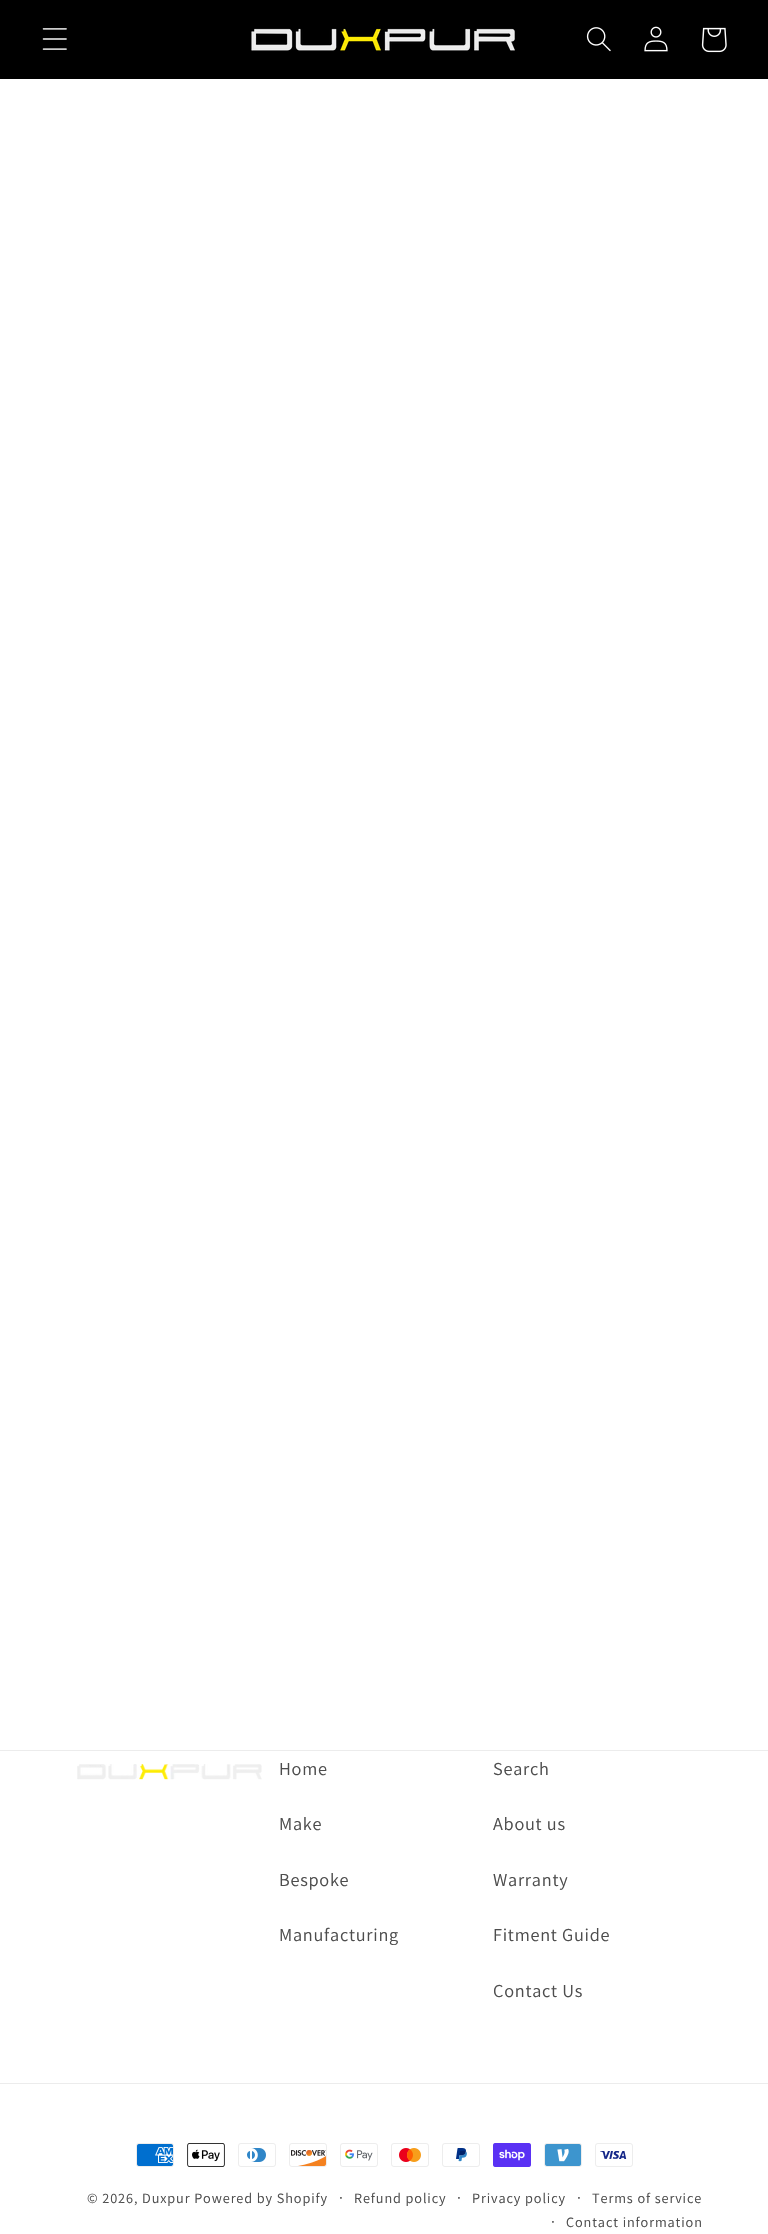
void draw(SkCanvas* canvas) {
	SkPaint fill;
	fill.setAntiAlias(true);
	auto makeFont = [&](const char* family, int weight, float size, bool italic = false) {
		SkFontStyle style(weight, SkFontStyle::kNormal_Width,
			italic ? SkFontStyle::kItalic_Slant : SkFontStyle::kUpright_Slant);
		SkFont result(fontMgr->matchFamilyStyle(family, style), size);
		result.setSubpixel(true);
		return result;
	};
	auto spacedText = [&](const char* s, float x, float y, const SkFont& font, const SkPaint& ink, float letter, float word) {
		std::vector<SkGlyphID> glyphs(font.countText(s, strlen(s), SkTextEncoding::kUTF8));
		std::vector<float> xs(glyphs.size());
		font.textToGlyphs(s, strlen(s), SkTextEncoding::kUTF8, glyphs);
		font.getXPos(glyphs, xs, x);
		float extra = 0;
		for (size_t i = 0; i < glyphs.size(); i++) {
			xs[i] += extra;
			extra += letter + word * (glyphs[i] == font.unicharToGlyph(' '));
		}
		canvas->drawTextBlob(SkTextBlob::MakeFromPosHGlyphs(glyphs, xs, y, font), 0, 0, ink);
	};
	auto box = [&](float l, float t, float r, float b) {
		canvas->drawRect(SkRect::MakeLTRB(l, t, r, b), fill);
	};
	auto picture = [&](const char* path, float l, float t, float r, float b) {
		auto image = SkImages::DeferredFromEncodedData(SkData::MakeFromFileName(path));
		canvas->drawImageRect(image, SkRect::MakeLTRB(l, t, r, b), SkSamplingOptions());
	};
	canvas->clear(0xFFFFFFFF);
	fill.setColor(0xFF000000);
	box(0, 0, 768, 79);
	picture("image0.png", 42, 28, 67, 50);
	picture("image1.png", 251, 28, 515, 51);
	picture("image2.png", 586, 27, 611, 52);
	picture("image3.png", 644, 26, 668, 52);
	picture("image4.png", 701, 27, 727, 53);
	fill.setColor(0xFFECECEC);
	box(0, 1750, 768, 1751);
	picture("image5.png", 77, 1764, 262, 1780);
	box(0, 2083, 768, 2084);
	picture("image6.png", 136, 2143, 174, 2167);
	picture("image7.png", 187, 2143, 225, 2167);
	picture("image8.png", 238, 2143, 276, 2167);
	picture("image9.png", 289, 2143, 327, 2167);
	picture("image10.png", 340, 2143, 378, 2167);
	picture("image11.png", 391, 2143, 429, 2167);
	picture("image12.png", 442, 2143, 480, 2167);
	picture("image13.png", 493, 2143, 531, 2167);
	picture("image14.png", 544, 2143, 582, 2167);
	picture("image15.png", 595, 2143, 633, 2167);
	auto font1 = makeFont("Assistant", 400, 18.25f);
	fill.setColor(0xFF4D4D4D);
	spacedText("Home", 279, 1775, font1, fill, 0.75f, 0);
	spacedText("Make", 279, 1830, font1, fill, 0.75f, 0);
	spacedText("Bespoke", 279, 1886, font1, fill, 0.75f, 0);
	spacedText("Manufacturing", 279, 1941, font1, fill, 0.75f, 0);
	spacedText("Search", 493, 1775, font1, fill, 0.75f, 0);
	spacedText("About us", 493, 1830, font1, fill, 0.75f, 0);
	spacedText("Warranty", 493, 1886, font1, fill, 0.75f, 0);
	spacedText("Fitment Guide", 493, 1941, font1, fill, 0.75f, 0);
	spacedText("Contact Us", 493, 1997, font1, fill, 0.75f, 0);
	auto font2 = makeFont("Assistant", 400, 14.25f);
	spacedText("© 2026, Duxpur Powered by Shopify", 87, 2203, font2, fill, 0.9f, 0);
	auto font3 = makeFont("Assistant", 400, 16);
	spacedText("·", 339, 2203, font3, fill, 0.9f, 0);
	spacedText("Refund policy", 354, 2203, font2, fill, 0.9f, 0);
	spacedText("·", 457, 2203, font3, fill, 0.9f, 0);
	spacedText("Privacy policy", 472, 2203, font2, fill, 0.9f, 0);
	spacedText("·", 577, 2203, font3, fill, 0.9f, 0);
	spacedText("Terms of service", 592, 2203, font2, fill, 0.9f, 0);
	spacedText("·", 551, 2227, font3, fill, 0.9f, 0);
	spacedText("Contact information", 566, 2227, font2, fill, 0.9f, 0);
}
